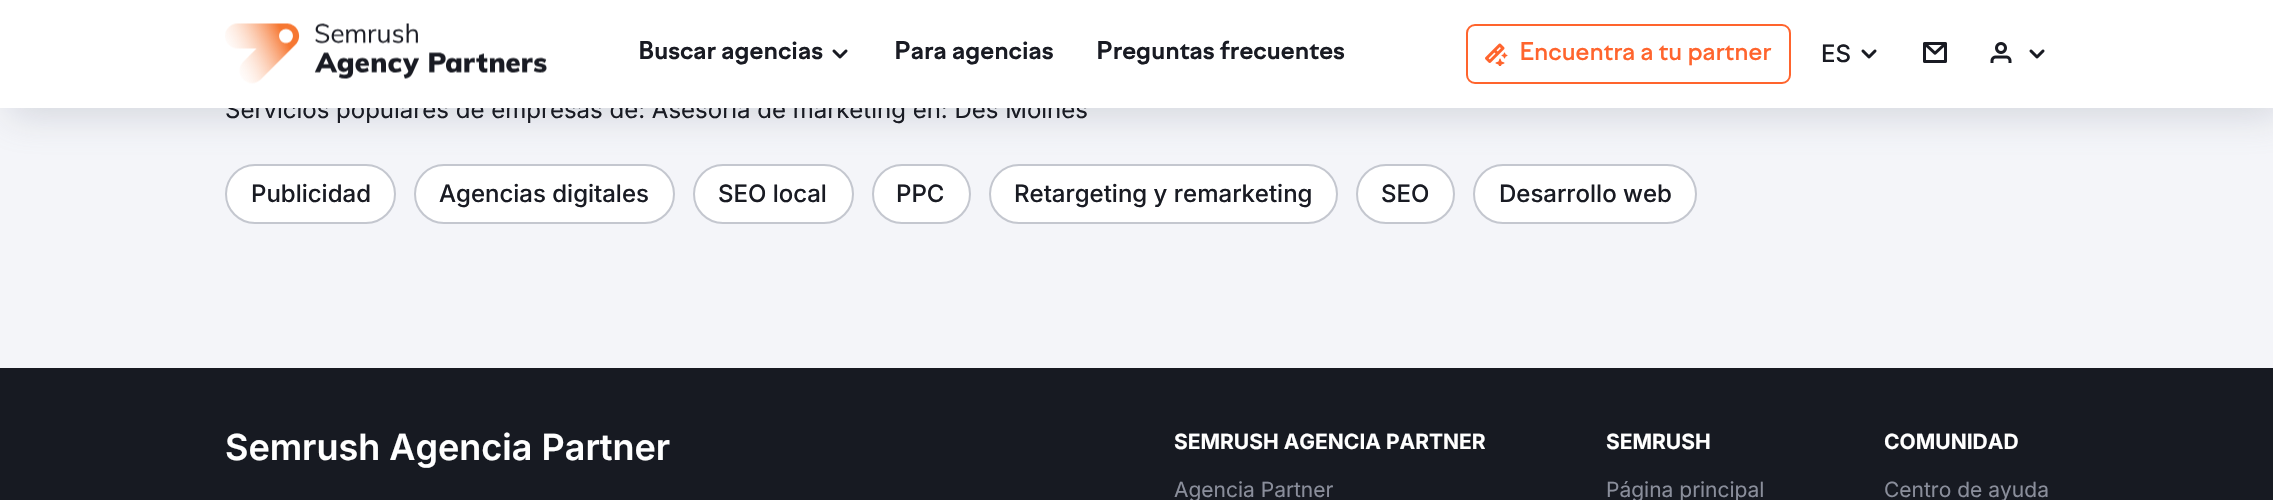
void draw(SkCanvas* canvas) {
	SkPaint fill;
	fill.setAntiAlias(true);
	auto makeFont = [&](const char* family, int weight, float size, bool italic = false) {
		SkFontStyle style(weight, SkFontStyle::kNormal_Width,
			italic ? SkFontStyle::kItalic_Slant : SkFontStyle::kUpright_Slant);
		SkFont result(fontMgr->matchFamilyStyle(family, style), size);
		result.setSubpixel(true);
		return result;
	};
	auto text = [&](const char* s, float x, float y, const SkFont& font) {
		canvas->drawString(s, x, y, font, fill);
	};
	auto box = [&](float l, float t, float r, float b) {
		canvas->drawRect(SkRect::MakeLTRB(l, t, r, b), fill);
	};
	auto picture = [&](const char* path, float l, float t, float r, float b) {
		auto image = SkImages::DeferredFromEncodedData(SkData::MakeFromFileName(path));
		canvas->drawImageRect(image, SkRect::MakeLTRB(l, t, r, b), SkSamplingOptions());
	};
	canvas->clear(0xFFF4F5F9);
	fill.setColor(0xFFFFFFFF);
	canvas->drawRoundRect(SkRect::MakeLTRB(226, 165, 395, 223), 29, 29, fill);
	fill.setStyle(SkPaint::kStroke_Style);
	fill.setStrokeWidth(2);
	fill.setColor(0xFFC4C7CF);
	canvas->drawRoundRect(SkRect::MakeLTRB(226, 165, 395, 223), 29, 29, fill);
	fill.setStyle(SkPaint::kFill_Style);
	fill.setColor(0xFFFFFFFF);
	canvas->drawRoundRect(SkRect::MakeLTRB(415, 165, 674, 223), 29, 29, fill);
	fill.setStyle(SkPaint::kStroke_Style);
	fill.setColor(0xFFC4C7CF);
	canvas->drawRoundRect(SkRect::MakeLTRB(415, 165, 674, 223), 29, 29, fill);
	fill.setStyle(SkPaint::kFill_Style);
	fill.setColor(0xFFFFFFFF);
	canvas->drawRoundRect(SkRect::MakeLTRB(694, 165, 853, 223), 29, 29, fill);
	fill.setStyle(SkPaint::kStroke_Style);
	fill.setColor(0xFFC4C7CF);
	canvas->drawRoundRect(SkRect::MakeLTRB(694, 165, 853, 223), 29, 29, fill);
	fill.setStyle(SkPaint::kFill_Style);
	fill.setColor(0xFFFFFFFF);
	canvas->drawRoundRect(SkRect::MakeLTRB(873, 165, 970, 223), 29, 29, fill);
	fill.setStyle(SkPaint::kStroke_Style);
	fill.setColor(0xFFC4C7CF);
	canvas->drawRoundRect(SkRect::MakeLTRB(873, 165, 970, 223), 29, 29, fill);
	fill.setStyle(SkPaint::kFill_Style);
	fill.setColor(0xFFFFFFFF);
	canvas->drawRoundRect(SkRect::MakeLTRB(990, 165, 1337, 223), 29, 29, fill);
	fill.setStyle(SkPaint::kStroke_Style);
	fill.setColor(0xFFC4C7CF);
	canvas->drawRoundRect(SkRect::MakeLTRB(990, 165, 1337, 223), 29, 29, fill);
	fill.setStyle(SkPaint::kFill_Style);
	fill.setColor(0xFFFFFFFF);
	canvas->drawRoundRect(SkRect::MakeLTRB(1357, 165, 1454, 223), 29, 29, fill);
	fill.setStyle(SkPaint::kStroke_Style);
	fill.setColor(0xFFC4C7CF);
	canvas->drawRoundRect(SkRect::MakeLTRB(1357, 165, 1454, 223), 29, 29, fill);
	fill.setStyle(SkPaint::kFill_Style);
	fill.setColor(0xFFFFFFFF);
	canvas->drawRoundRect(SkRect::MakeLTRB(1474, 165, 1696, 223), 29, 29, fill);
	fill.setStyle(SkPaint::kStroke_Style);
	fill.setColor(0xFFC4C7CF);
	canvas->drawRoundRect(SkRect::MakeLTRB(1474, 165, 1696, 223), 29, 29, fill);
	fill.setStyle(SkPaint::kFill_Style);
	fill.setColor(0x4D898D9A);
	fill.setMaskFilter(SkMaskFilter::MakeBlur(kNormal_SkBlurStyle, 19));
	canvas->drawRect(SkRect::MakeLTRB(8, 8, 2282, 116), fill);
	fill.setMaskFilter(nullptr);
	fill.setColor(0xFF171A22);
	box(0, 368, 2273, 500);
	auto font1 = makeFont("Inter", 400, 24);
	fill.setColor(0xFF191B23);
	text("Servicios populares de empresas de: Asesoría de marketing en: Des Moines", 225, 118, font1);
	fill.setColor(0xFFFFFFFF);
	box(0, 0, 2273, 108);
	picture("image1.png", 2029, 49, 2045, 59);
	picture("image4.png", 1990, 42, 2012, 63);
	picture("image3.png", 1923, 42, 1947, 63);
	picture("image1.png", 1861, 49, 1877, 59);
	auto font2 = makeFont("Inter", 500, 24);
	fill.setColor(0xFF191B23);
	text("ES", 1821, 62, font2);
	fill.setStyle(SkPaint::kStroke_Style);
	fill.setColor(0xFFFF642D);
	canvas->drawRoundRect(SkRect::MakeLTRB(1467, 25, 1790, 83), 8, 8, fill);
	picture("image2.png", 1485, 43, 1508, 66);
	auto font3 = makeFont("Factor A", 500, 24);
	fill.setStyle(SkPaint::kFill_Style);
	text("Encuentra a tu partner", 1519, 60, font3);
	auto font4 = makeFont("Factor A", 700, 24);
	fill.setColor(0xFF191B23);
	text("Preguntas frecuentes", 1096, 59, font4);
	text("Para agencias", 894, 59, font4);
	picture("image1.png", 832, 49, 848, 59);
	text("Buscar agencias", 638, 59, font4);
	picture("image0.png", 225, 23, 547, 84);
	text("Publicidad", 251, 202, font2);
	text("Agencias digitales", 439, 202, font2);
	text("SEO local", 718, 202, font2);
	text("PPC", 896, 202, font2);
	text("Retargeting y remarketing", 1014, 202, font2);
	text("SEO", 1381, 202, font2);
	text("Desarrollo web", 1499, 202, font2);
	auto font5 = makeFont("Inter", 600, 36);
	fill.setColor(0xFFFFFFFF);
	text("Semrush Agencia Partner", 225, 460, font5);
	auto font6 = makeFont("Inter", 700, 21);
	text("SEMRUSH AGENCIA PARTNER", 1174, 449, font6);
	auto font7 = makeFont("Inter", 400, 21);
	fill.setColor(0xFF8A8E9B);
	text("Agencia Partner", 1174, 497, font7);
	fill.setColor(0xFFFFFFFF);
	text("SEMRUSH", 1606, 449, font6);
	fill.setColor(0xFF8A8E9B);
	text("Página principal", 1606, 497, font7);
	fill.setColor(0xFFFFFFFF);
	text("COMUNIDAD", 1884, 449, font6);
	fill.setColor(0xFF8A8E9B);
	text("Centro de ayuda", 1884, 497, font7);
}
